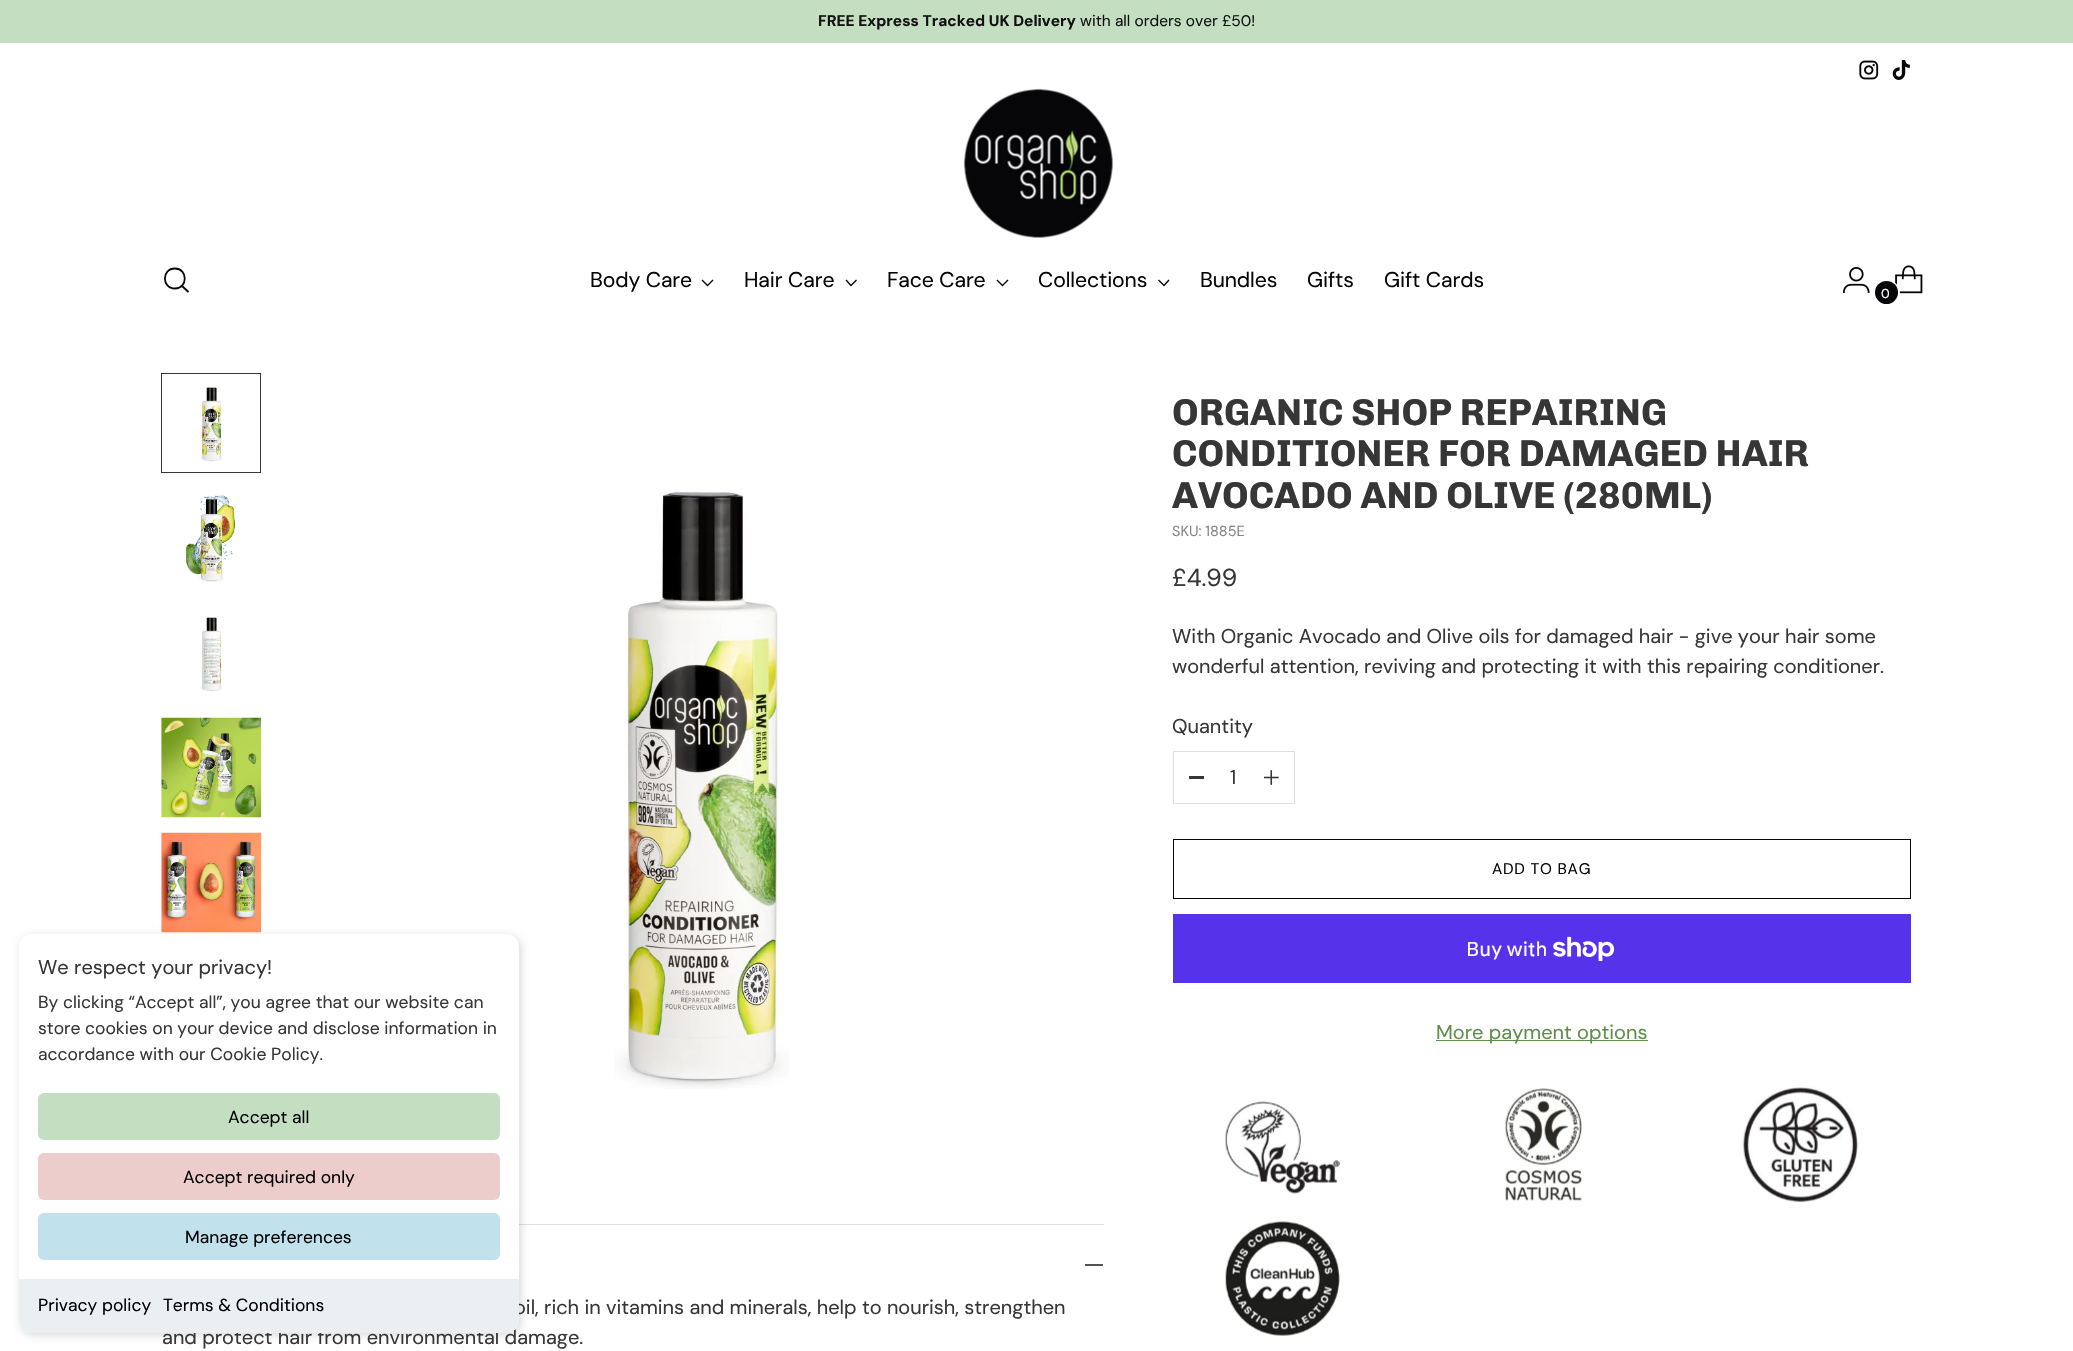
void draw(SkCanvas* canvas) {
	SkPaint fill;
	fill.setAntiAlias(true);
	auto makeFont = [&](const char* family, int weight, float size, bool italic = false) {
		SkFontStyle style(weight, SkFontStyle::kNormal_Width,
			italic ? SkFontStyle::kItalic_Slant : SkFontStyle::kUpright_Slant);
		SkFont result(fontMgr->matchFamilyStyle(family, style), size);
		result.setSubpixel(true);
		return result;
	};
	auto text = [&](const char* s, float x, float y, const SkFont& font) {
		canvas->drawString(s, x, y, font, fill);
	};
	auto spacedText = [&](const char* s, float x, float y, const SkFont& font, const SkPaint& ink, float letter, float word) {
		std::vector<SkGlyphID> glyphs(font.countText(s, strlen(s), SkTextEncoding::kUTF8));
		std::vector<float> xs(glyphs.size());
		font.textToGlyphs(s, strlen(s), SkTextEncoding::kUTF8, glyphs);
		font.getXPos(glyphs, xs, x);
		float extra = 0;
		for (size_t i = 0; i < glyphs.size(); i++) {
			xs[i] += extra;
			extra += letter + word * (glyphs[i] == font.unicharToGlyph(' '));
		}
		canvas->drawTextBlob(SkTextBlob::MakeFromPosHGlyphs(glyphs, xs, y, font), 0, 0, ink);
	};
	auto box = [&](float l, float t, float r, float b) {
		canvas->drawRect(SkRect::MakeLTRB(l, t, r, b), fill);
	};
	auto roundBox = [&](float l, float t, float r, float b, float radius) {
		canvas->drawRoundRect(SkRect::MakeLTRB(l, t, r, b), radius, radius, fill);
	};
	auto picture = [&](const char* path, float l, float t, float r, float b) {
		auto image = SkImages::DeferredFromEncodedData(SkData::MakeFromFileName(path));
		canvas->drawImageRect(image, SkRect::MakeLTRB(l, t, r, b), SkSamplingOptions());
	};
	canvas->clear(0xFFFFFFFF);
	fill.setColor(0xFFC4DEC2);
	box(0, 0, 2073, 43);
	picture("image0.png", 1859, 60, 1879, 80);
	picture("image1.png", 1892, 60, 1910, 80);
	picture("image2.png", 963, 88, 1113, 238);
	fill.setStyle(SkPaint::kStroke_Style);
	fill.setStrokeWidth(1.8f);
	fill.setStrokeCap(SkPaint::kRound_Cap);
	fill.setColor(0xFF060609);
	canvas->drawPath(SkPathBuilder().moveTo(175, 288.5f).cubicTo(188, 288.5f, 188, 268.5f, 175, 268.5f).cubicTo(161.5f, 268.5f, 161.5f, 288.5f, 175, 288.5f).close().detach(), fill);
	fill.setStrokeCap(SkPaint::kButt_Cap);
	canvas->drawPath(SkPathBuilder().moveTo(182, 286).lineTo(188.5f, 292).detach(), fill);
	fill.setStrokeWidth(1.4f);
	canvas->drawPath(SkPathBuilder().moveTo(702, 280).lineTo(707.5f, 285.5f).lineTo(713, 280).detach(), fill);
	canvas->drawPath(SkPathBuilder().moveTo(846, 280).lineTo(851, 285.5f).lineTo(856.5f, 280).detach(), fill);
	canvas->drawPath(SkPathBuilder().moveTo(997, 280).lineTo(1002.5f, 285.5f).lineTo(1008, 280).detach(), fill);
	canvas->drawPath(SkPathBuilder().moveTo(1158.5f, 280).lineTo(1164, 285.5f).lineTo(1169, 280).detach(), fill);
	picture("image3.png", 1842, 267, 1870, 293);
	picture("image4.png", 1895, 265, 1923, 294);
	fill.setStrokeWidth(2);
	fill.setColor(0xFFFFFFFF);
	canvas->drawCircle(1887, 293, 12, fill);
	fill.setStyle(SkPaint::kFill_Style);
	fill.setColor(0xFF060609);
	canvas->drawCircle(1886.5f, 292.5f, 11.5f, fill);
	fill.setStyle(SkPaint::kStroke_Style);
	fill.setStrokeWidth(1);
	fill.setColor(0xFFDEDEDE);
	canvas->drawRect(SkRect::MakeLTRB(1173.5f, 751.5f, 1294.5f, 803.5f), fill);
	fill.setStyle(SkPaint::kFill_Style);
	fill.setColor(0xFF363636);
	box(1189, 776, 1204, 779);
	picture("image5.png", 1264, 770, 1279, 785);
	fill.setStyle(SkPaint::kStroke_Style);
	fill.setColor(0xFF060609);
	canvas->drawRect(SkRect::MakeLTRB(1173.5f, 839.5f, 1910.5f, 898.5f), fill);
	fill.setStyle(SkPaint::kFill_Style);
	fill.setColor(0xFF5433EB);
	box(1173, 914, 1911, 983);
	picture("image6.png", 1553, 936, 1615, 961);
	fill.setColor(0xFF5F8E4B);
	box(1436, 1040, 1648, 1041);
	picture("image7.png", 1225, 1101, 1340, 1194);
	picture("image8.png", 1505, 1088, 1582, 1201);
	picture("image9.png", 1742, 1087, 1858, 1203);
	picture("image10.png", 1225, 1221, 1340, 1336);
	picture("image11.png", 200, 387, 222, 462);
	fill.setStyle(SkPaint::kStroke_Style);
	fill.setColor(0xFF363636);
	canvas->drawRect(SkRect::MakeLTRB(161.5f, 373.5f, 260.5f, 472.5f), fill);
	picture("image12.png", 185, 495, 236, 582);
	picture("image13.png", 200, 617, 222, 692);
	picture("image14.png", 161, 717, 262, 818);
	picture("image15.png", 161, 832, 262, 933);
	picture("image16.png", 614, 491, 789, 1089);
	fill.setStyle(SkPaint::kFill_Style);
	fill.setColor(0xFFDEDEDE);
	box(519, 1224, 1104, 1225);
	fill.setColor(0xFF545454);
	box(1085, 1264, 1103, 1266);
	fill.setColor(0x26000000);
	fill.setMaskFilter(SkMaskFilter::MakeBlur(kNormal_SkBlurStyle, 4));
	canvas->drawRoundRect(SkRect::MakeLTRB(21, 936, 521, 1335), 13, 13, fill);
	fill.setMaskFilter(nullptr);
	auto font1 = makeFont("DM Sans", 700, 15.5f);
	fill.setColor(0xFF111111);
	text("FREE Express Tracked UK Delivery", 818, 26, font1);
	auto font2 = makeFont("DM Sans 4", 400, 15.5f);
	text("with all orders over £50!", 1080, 26, font2);
	auto font3 = makeFont("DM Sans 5", 400, 21.25f);
	fill.setColor(0xFF060609);
	spacedText("Body Care", 590, 287, font3, fill, -0.1f, 0);
	spacedText("Hair Care", 744, 287, font3, fill, -0.1f, 0);
	spacedText("Face Care", 887, 287, font3, fill, -0.1f, 0);
	spacedText("Collections", 1038, 287, font3, fill, -0.1f, 0);
	spacedText("Bundles", 1200, 287, font3, fill, -0.1f, 0);
	spacedText("Gifts", 1307, 287, font3, fill, -0.1f, 0);
	spacedText("Gift Cards", 1384, 287, font3, fill, -0.1f, 0);
	auto font4 = makeFont("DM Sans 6", 400, 13);
	fill.setColor(0xFFFFFFFF);
	text("0", 1881, 298, font4);
	auto font5 = makeFont("Chivo", 700, 37.5f);
	fill.setColor(0xFF363636);
	text("ORGANIC SHOP REPAIRING", 1172, 425, font5);
	text("CONDITIONER FOR DAMAGED HAIR", 1172, 466, font5);
	text("AVOCADO AND OLIVE (280ML)", 1172, 508, font5);
	auto font6 = makeFont("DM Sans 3", 400, 14.5f);
	fill.setColor(0xFF868686);
	text("SKU: 1885E", 1172, 536, font6);
	auto font7 = makeFont("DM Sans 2", 400, 24.5f);
	fill.setColor(0xFF363636);
	text("£4.99", 1172, 586, font7);
	auto font8 = makeFont("DM Sans", 400, 20);
	text("With Organic Avocado and Olive oils for damaged hair - give your hair some", 1172, 643, font8);
	text("wonderful attention, reviving and protecting it with this repairing conditioner.", 1172, 673, font8);
	text("Quantity", 1172, 733, font8);
	text("1", 1230, 784, font8);
	fill.setColor(0xFF060609);
	spacedText("ADD TO BAG", 1492, 874, font2, fill, 0.75f, 0);
	auto font9 = makeFont("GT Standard", 400, 20);
	fill.setColor(0xFFFFFFFF);
	text("Buy with", 1466, 956, font9);
	fill.setColor(0xFF5F8E4B);
	text("More payment options", 1436, 1039, font8);
	fill.setColor(0xFF363636);
	text("oil, rich in vitamins and minerals, help to nourish, strengthen", 514, 1314, font8);
	text("and protect hair from environmental damage.", 162, 1344, font8);
	fill.setColor(0xFFFFFFFF);
	roundBox(19, 934, 519, 1333, 13);
	fill.setColor(0xFF363636);
	text("We respect your privacy!", 38, 974, font8);
	auto font10 = makeFont("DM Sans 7", 400, 17.5f);
	text("By clicking “Accept all”, you agree that our website can", 38, 1008, font10);
	text("store cookies on your device and disclose information in", 38, 1034, font10);
	text("accordance with our Cookie Policy.", 38, 1060, font10);
	fill.setColor(0xFFC4DEC2);
	roundBox(38, 1093, 500, 1140, 6);
	fill.setColor(0xFF000000);
	text("Accept all", 228, 1123, font10);
	fill.setColor(0xFFECCDCC);
	roundBox(38, 1153, 500, 1200, 6);
	fill.setColor(0xFF000000);
	text("Accept required only", 183, 1183, font10);
	fill.setColor(0xFFC1E1EC);
	roundBox(38, 1213, 500, 1260, 6);
	fill.setColor(0xFF000000);
	text("Manage preferences", 185, 1243, font10);
	fill.setColor(0xFFEAEFF2);
	canvas->drawPath(SkPathBuilder().moveTo(19, 1279).lineTo(519, 1279).lineTo(519, 1320).cubicTo(519, 1327, 513, 1333, 506, 1333).lineTo(32, 1333).cubicTo(25, 1333, 19, 1327, 19, 1320).close().detach(), fill);
	fill.setColor(0xFFEEEEEE);
	box(19, 1279, 519, 1280);
	canvas->save();
	canvas->clipPath(SkPathBuilder().moveTo(32, 934).lineTo(506, 934).cubicTo(513, 934, 519, 940, 519, 947).lineTo(519, 1320).cubicTo(519, 1327, 513, 1333, 506, 1333).lineTo(32, 1333).cubicTo(25, 1333, 19, 1327, 19, 1320).lineTo(19, 947).cubicTo(19, 940, 25, 934, 32, 934).close().detach(), true);
	box(19, 1331, 519, 1332);
	canvas->restore();
	fill.setColor(0xFF000000);
	text("Privacy policy", 38, 1311, font10);
	text("Terms & Conditions", 163, 1311, font10);
}
